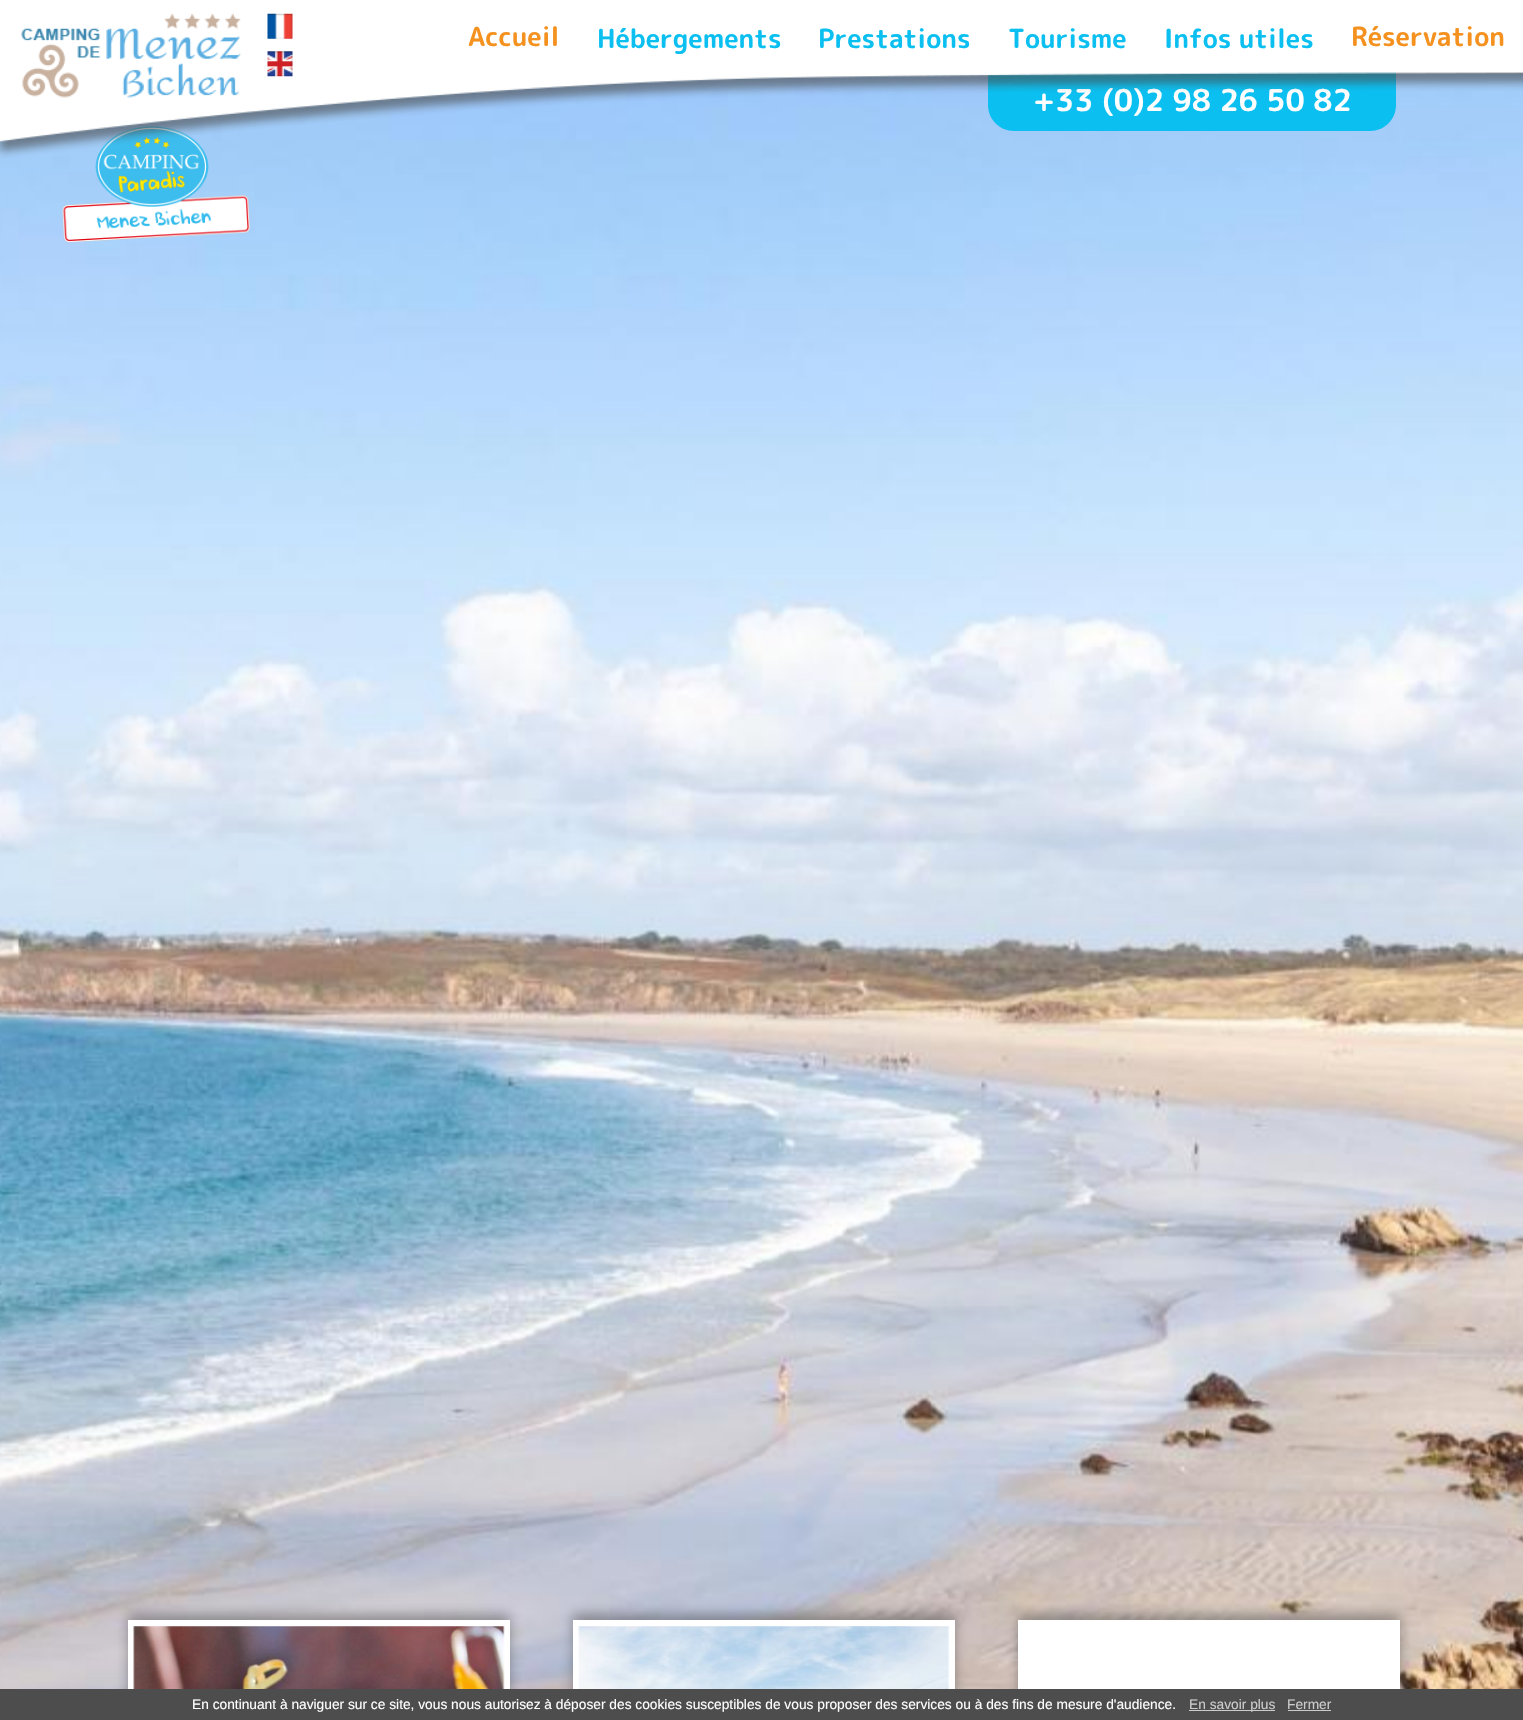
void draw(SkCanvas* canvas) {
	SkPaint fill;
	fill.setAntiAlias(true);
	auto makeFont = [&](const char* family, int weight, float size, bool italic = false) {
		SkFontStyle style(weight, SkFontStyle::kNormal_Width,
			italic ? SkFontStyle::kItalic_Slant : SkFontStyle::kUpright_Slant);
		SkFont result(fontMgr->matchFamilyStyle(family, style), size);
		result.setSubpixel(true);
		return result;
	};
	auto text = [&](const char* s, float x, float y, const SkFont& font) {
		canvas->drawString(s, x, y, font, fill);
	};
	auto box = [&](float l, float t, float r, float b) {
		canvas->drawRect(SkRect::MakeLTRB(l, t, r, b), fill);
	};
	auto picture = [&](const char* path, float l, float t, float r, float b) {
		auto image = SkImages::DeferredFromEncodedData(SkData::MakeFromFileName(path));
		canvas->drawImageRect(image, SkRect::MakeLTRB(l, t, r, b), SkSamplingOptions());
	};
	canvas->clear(0xFFFFFFFF);
	picture("image2.png", 267, 13, 293, 39);
	picture("image4.png", 0, 73, 1523, 1689);
	picture("image5.png", 62, 126, 250, 243);
	fill.setColor(0xFF0BC0F1);
	canvas->drawPath(SkPathBuilder().moveTo(988, 70).lineTo(1396, 70).lineTo(1396, 105).cubicTo(1396, 119.5f, 1384.5f, 131, 1370, 131).lineTo(1014, 131).cubicTo(999.5f, 131, 988, 119.5f, 988, 105).close().detach(), fill);
	fill.setColor(0x6B323232);
	fill.setMaskFilter(SkMaskFilter::MakeBlur(kNormal_SkBlurStyle, 6));
	canvas->drawRect(SkRect::MakeLTRB(128, 1614, 510, 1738), fill);
	fill.setMaskFilter(nullptr);
	fill.setColor(0xFFFFFFFF);
	box(128, 1620, 510, 1689);
	picture("image6.png", 133, 1626, 505, 1689);
	fill.setColor(0x6B323232);
	fill.setMaskFilter(SkMaskFilter::MakeBlur(kNormal_SkBlurStyle, 6));
	canvas->drawRect(SkRect::MakeLTRB(573, 1614, 955, 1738), fill);
	fill.setMaskFilter(nullptr);
	fill.setColor(0xFFFFFFFF);
	box(573, 1620, 955, 1689);
	picture("image7.png", 578, 1626, 950, 1689);
	fill.setColor(0x6B323232);
	fill.setMaskFilter(SkMaskFilter::MakeBlur(kNormal_SkBlurStyle, 6));
	canvas->drawRect(SkRect::MakeLTRB(1018, 1614, 1400, 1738), fill);
	fill.setMaskFilter(nullptr);
	fill.setColor(0xFFFFFFFF);
	box(1018, 1620, 1400, 1689);
	fill.setColor(0xFF4D4D4D);
	box(0, 1689, 1523, 1720);
	fill.setColor(0xFFCCCCCC);
	box(1189, 1710, 1275, 1711);
	box(1288, 1710, 1331, 1711);
	auto font1 = makeFont("Rounded Mplus 1c Bold", 700, 26.25f);
	fill.setColor(0xFFF4911F);
	text("Accueil", 468, 46, font1);
	fill.setColor(0xFF0BC0F1);
	text("Hébergements", 597, 48, font1);
	text("Prestations", 818, 48, font1);
	text("Tourisme", 1008, 48, font1);
	text("Infos utiles", 1164, 48, font1);
	fill.setColor(0xFFF4911F);
	text("Réservation", 1351, 46, font1);
	auto font2 = makeFont("Rounded Mplus 1c Bold", 700, 30);
	fill.setColor(0xFFFFFFFF);
	text("+33 (0)2 98 26 50 82", 1033, 111, font2);
	picture("image0.png", 0, 70, 1523, 158);
	picture("image3.png", 267, 51, 293, 77);
	picture("image1.png", 21, 13, 242, 98);
	auto font3 = makeFont("Liberation Sans", 400, 13.75f);
	text("En continuant à naviguer sur ce site, vous nous autorisez à déposer des cookies susceptibles de vous proposer des services ou à des fins de mesure d'audience.", 192, 1709, font3);
	fill.setColor(0xFFCCCCCC);
	text("En savoir plus", 1189, 1709, font3);
	text("Fermer", 1287, 1709, font3);
}
